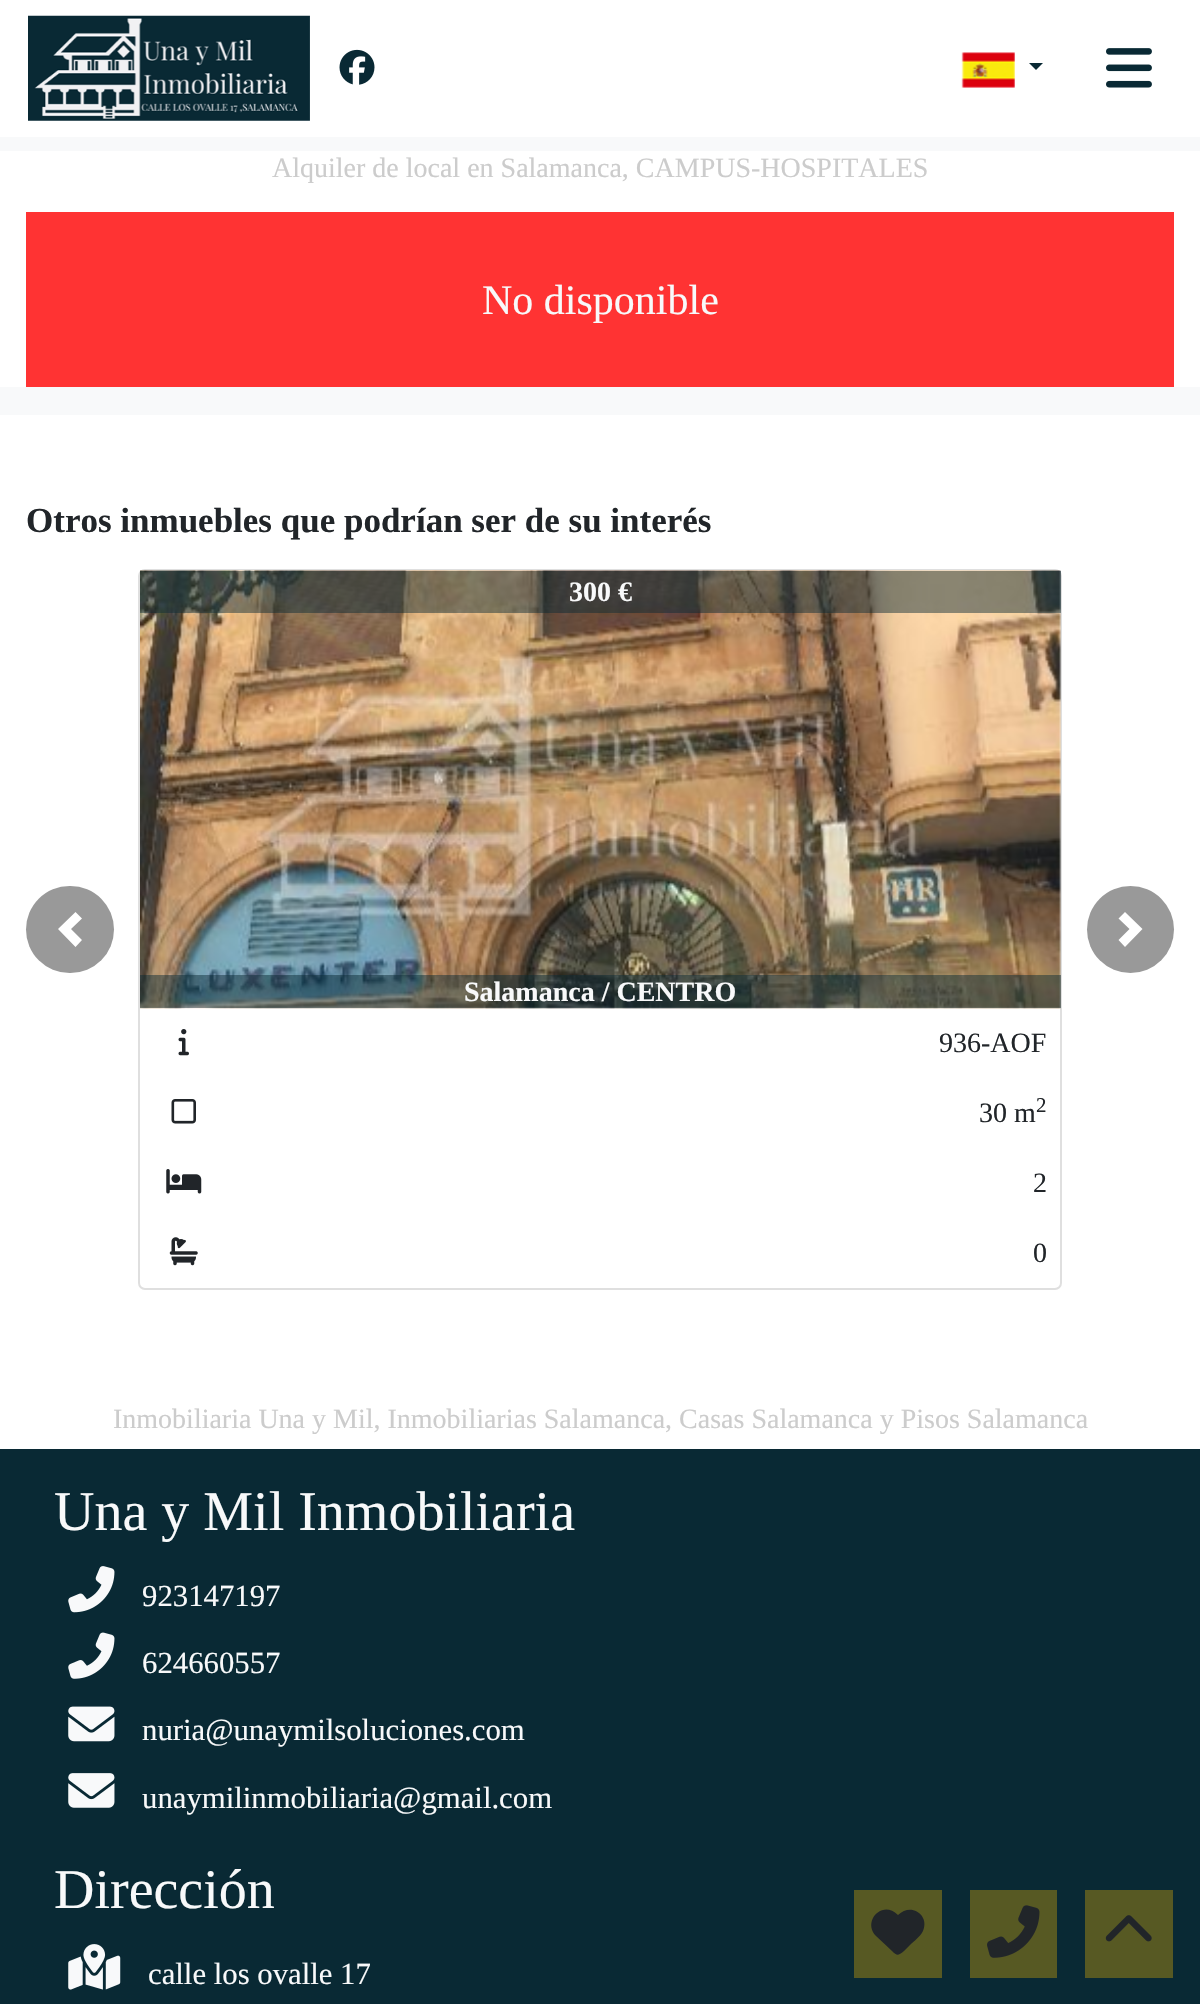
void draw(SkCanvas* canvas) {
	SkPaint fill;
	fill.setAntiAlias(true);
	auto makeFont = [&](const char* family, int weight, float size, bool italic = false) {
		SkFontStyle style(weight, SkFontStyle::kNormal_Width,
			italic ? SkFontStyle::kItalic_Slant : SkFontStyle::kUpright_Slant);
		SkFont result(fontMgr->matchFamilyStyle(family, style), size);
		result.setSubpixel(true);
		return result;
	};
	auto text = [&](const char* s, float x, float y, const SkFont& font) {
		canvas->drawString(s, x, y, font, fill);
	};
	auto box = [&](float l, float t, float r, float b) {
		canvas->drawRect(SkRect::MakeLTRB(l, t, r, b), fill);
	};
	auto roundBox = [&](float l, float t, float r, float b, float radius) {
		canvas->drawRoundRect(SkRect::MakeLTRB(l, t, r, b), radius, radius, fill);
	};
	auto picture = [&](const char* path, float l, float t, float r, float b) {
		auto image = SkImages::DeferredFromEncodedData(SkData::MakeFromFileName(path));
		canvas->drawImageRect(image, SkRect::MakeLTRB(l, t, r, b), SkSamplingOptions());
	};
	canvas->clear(0xFFFFFFFF);
	picture("image0.png", 28, 15, 310, 121);
	picture("image1.png", 339, 49, 375, 85);
	picture("image2.png", 961, 52, 1015, 88);
	fill.setColor(0xFF092934);
	canvas->drawPath(SkPathBuilder().moveTo(1029, 63).lineTo(1043, 63).lineTo(1036, 70).close().detach(), fill);
	picture("image3.png", 1106, 48, 1152, 88);
	fill.setColor(0xFFF8F9FA);
	box(0, 137, 1200, 415);
	fill.setColor(0xFFFFFFFF);
	box(0, 151, 1200, 387);
	fill.setColor(0xFFFF3333);
	box(26, 212, 1174, 387);
	fill.setColor(0xFF999999);
	roundBox(26, 886, 114, 973, 43.5f);
	fill.setColor(0xFFFFFFFF);
	canvas->drawPath(SkPathBuilder().moveTo(75.5f, 912).lineTo(58, 929).lineTo(75.5f, 947).lineTo(82, 940).lineTo(71, 929).lineTo(82, 918.5f).close().detach(), fill);
	fill.setStyle(SkPaint::kStroke_Style);
	fill.setStrokeWidth(2);
	fill.setColor(0xFFDFDFDF);
	canvas->drawRoundRect(SkRect::MakeLTRB(139, 570, 1061, 1289), 6, 6, fill);
	picture("image4.png", 140, 570, 1061, 1009);
	fill.setStyle(SkPaint::kFill_Style);
	fill.setColor(0x78092934);
	box(140, 571, 1061, 613);
	box(140, 975, 1061, 1008);
	picture("image5.png", 178, 1029, 189, 1056);
	picture("image6.png", 171, 1099, 196, 1124);
	picture("image7.png", 166, 1169, 202, 1194);
	picture("image8.png", 169, 1237, 198, 1266);
	fill.setColor(0xFF999999);
	canvas->drawCircle(1130.5f, 929.5f, 43.5f, fill);
	fill.setColor(0xFFFFFFFF);
	canvas->drawPath(SkPathBuilder().moveTo(1125, 912).lineTo(1118.5f, 918.5f).lineTo(1129.5f, 929).lineTo(1118.5f, 940).lineTo(1125, 947).lineTo(1142.5f, 929).close().detach(), fill);
	fill.setColor(0xFF092934);
	box(0, 1449, 1200, 2004);
	picture("image9.png", 68, 1566, 115, 1613);
	picture("image10.png", 68, 1632, 115, 1679);
	picture("image11.png", 68, 1706, 115, 1742);
	picture("image12.png", 68, 1773, 115, 1808);
	picture("image13.png", 68, 1944, 121, 1990);
	fill.setColor(0xFF575923);
	box(854, 1890, 942, 1978);
	fill.setColor(0xFF212529);
	canvas->drawPath(SkPathBuilder().moveTo(876, 1936).lineTo(895, 1953).lineTo(876, 1936).lineTo(892, 1951).cubicTo(897, 1956, 898, 1956, 904, 1951).lineTo(910, 1945).cubicTo(914, 1941, 920, 1937, 923, 1931).cubicTo(930, 1915, 911, 1902, 898, 1915).cubicTo(882, 1899, 862, 1922, 876, 1936).close().detach(), fill);
	fill.setColor(0xFF575923);
	box(970, 1890, 1057, 1978);
	picture("image14.png", 987, 1905, 1040, 1958);
	box(1085, 1890, 1173, 1978);
	picture("image15.png", 1105, 1915, 1152, 1942);
	auto font1 = makeFont("Liberation Serif", 400, 28);
	fill.setColor(0xFFCCCCCC);
	text("Alquiler de local en Salamanca, CAMPUS-HOSPITALES", 272, 177, font1);
	auto font2 = makeFont("Liberation Serif", 400, 42);
	fill.setColor(0xFFF8F9FA);
	text("No disponible", 482, 314, font2);
	auto font3 = makeFont("Liberation Serif", 700, 35);
	fill.setColor(0xFF212529);
	text("Otros inmuebles que podrían ser de su interés", 26, 532, font3);
	auto font4 = makeFont("Liberation Serif", 700, 28);
	fill.setColor(0xFFF8F9FA);
	text("300 €", 569, 601, font4);
	text("Salamanca / CENTRO", 464, 1001, font4);
	fill.setColor(0xFF212529);
	text("936-AOF", 939, 1052, font1);
	text("30 m", 979, 1122, font1);
	auto font5 = makeFont("Liberation Serif", 400, 21);
	text("2", 1036, 1112, font5);
	text("2", 1033, 1192, font1);
	text("0", 1033, 1262, font1);
	fill.setColor(0xFFCCCCCC);
	text("Inmobiliaria Una y Mil, Inmobiliarias Salamanca, Casas Salamanca y Pisos Salamanca", 113, 1428, font1);
	auto font6 = makeFont("Liberation Serif", 400, 56);
	fill.setColor(0xFFF8F9FA);
	text("Una y Mil Inmobiliaria", 54, 1530, font6);
	auto font7 = makeFont("Liberation Serif", 400, 30.75f);
	text("923147197", 142, 1606, font7);
	text("624660557", 142, 1673, font7);
	text("nuria@unaymilsoluciones.com", 142, 1740, font7);
	text("unaymilinmobiliaria@gmail.com", 142, 1808, font7);
	text("Dirección", 54, 1908, font6);
	text("calle los ovalle 17", 148, 1984, font7);
}
